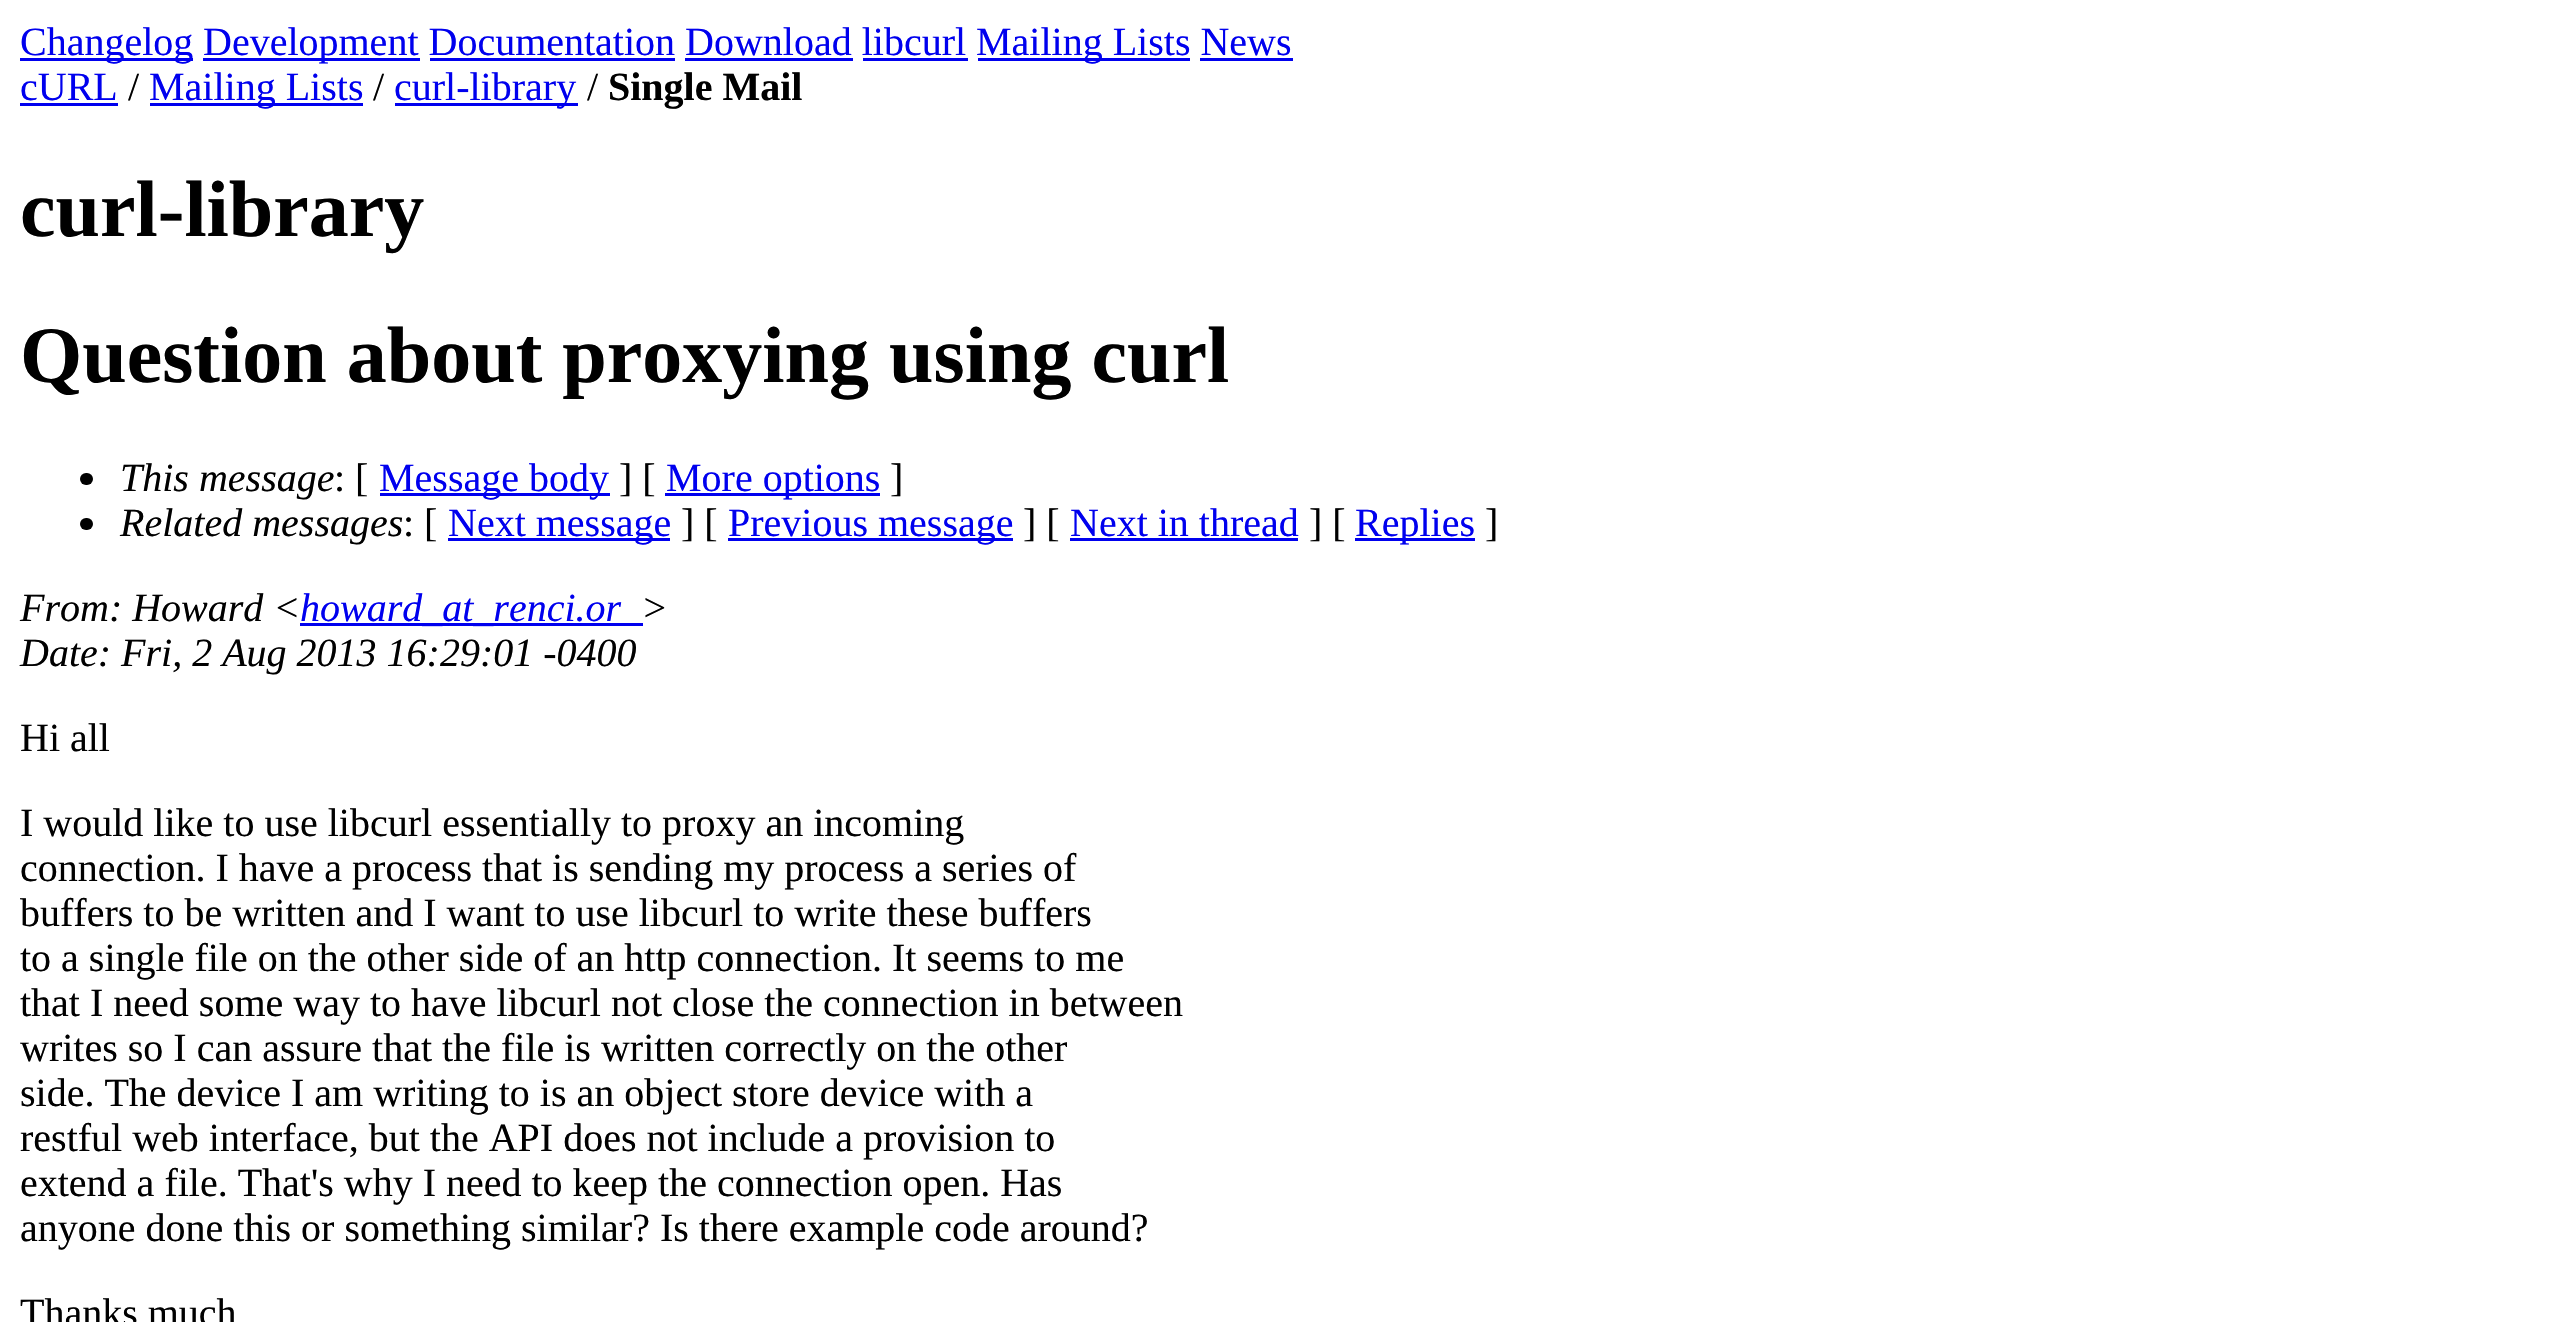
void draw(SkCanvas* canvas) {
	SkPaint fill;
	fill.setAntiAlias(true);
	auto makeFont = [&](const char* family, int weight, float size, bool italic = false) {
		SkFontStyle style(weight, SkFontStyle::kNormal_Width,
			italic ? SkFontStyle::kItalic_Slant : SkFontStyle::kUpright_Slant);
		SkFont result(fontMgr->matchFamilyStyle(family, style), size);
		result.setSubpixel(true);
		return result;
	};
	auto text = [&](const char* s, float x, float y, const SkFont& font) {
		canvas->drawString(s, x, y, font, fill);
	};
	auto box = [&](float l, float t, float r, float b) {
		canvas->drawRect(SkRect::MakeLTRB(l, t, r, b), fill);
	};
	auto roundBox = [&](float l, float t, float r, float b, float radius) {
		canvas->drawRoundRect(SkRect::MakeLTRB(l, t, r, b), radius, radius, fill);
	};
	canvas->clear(0xFFFFFFFF);
	fill.setColor(0xFF0000EE);
	box(20, 58, 193, 61);
	box(203, 58, 420, 61);
	box(978, 58, 1190, 61);
	box(430, 58, 675, 61);
	box(685, 58, 853, 61);
	box(863, 58, 968, 61);
	box(1200, 58, 1293, 61);
	box(20, 103, 118, 106);
	box(150, 103, 363, 106);
	box(395, 103, 578, 106);
	fill.setColor(0xFF000000);
	roundBox(80, 473, 93, 485, 6);
	fill.setColor(0xFF0000EE);
	box(380, 493, 610, 496);
	box(665, 493, 880, 496);
	fill.setColor(0xFF000000);
	roundBox(80, 518, 93, 530, 6);
	fill.setColor(0xFF0000EE);
	box(448, 538, 670, 541);
	box(728, 538, 1013, 541);
	box(1070, 538, 1298, 541);
	box(1355, 538, 1475, 541);
	box(300, 623, 643, 626);
	auto font1 = makeFont("Liberation Serif", 400, 40);
	text("Changelog", 20, 55, font1);
	text("Development Documentation Download libcurl", 203, 55, font1);
	text("Mailing Lists News", 976, 55, font1);
	text("cURL", 20, 100, font1);
	fill.setColor(0xFF000000);
	text("/", 128, 100, font1);
	fill.setColor(0xFF0000EE);
	text("Mailing Lists", 149, 100, font1);
	fill.setColor(0xFF000000);
	text("/", 373, 100, font1);
	fill.setColor(0xFF0000EE);
	text("curl-library", 394, 100, font1);
	fill.setColor(0xFF000000);
	text("/", 587, 100, font1);
	auto font2 = makeFont("Liberation Serif", 700, 40);
	text("Single Mail", 608, 100, font2);
	auto font3 = makeFont("Liberation Serif", 700, 80);
	text("curl-library", 20, 236, font3);
	text("Question about proxying using curl", 20, 382, font3);
	auto font4 = makeFont("Liberation Serif", 400, 40, true);
	text("This message", 120, 491, font4);
	text(": [", 334, 491, font1);
	fill.setColor(0xFF0000EE);
	text("Message body", 379, 491, font1);
	fill.setColor(0xFF000000);
	text("] [", 619, 491, font1);
	fill.setColor(0xFF0000EE);
	text("More options", 666, 491, font1);
	fill.setColor(0xFF000000);
	text("]", 890, 491, font1);
	text("Related messages", 120, 536, font4);
	text(": [", 403, 536, font1);
	fill.setColor(0xFF0000EE);
	text("Next message", 448, 536, font1);
	fill.setColor(0xFF000000);
	text("] [", 681, 536, font1);
	fill.setColor(0xFF0000EE);
	text("Previous message", 728, 536, font1);
	fill.setColor(0xFF000000);
	text("] [", 1023, 536, font1);
	fill.setColor(0xFF0000EE);
	text("Next in thread", 1070, 536, font1);
	fill.setColor(0xFF000000);
	text("] [", 1309, 536, font1);
	fill.setColor(0xFF0000EE);
	text("Replies", 1355, 536, font1);
	fill.setColor(0xFF000000);
	text("]", 1485, 536, font1);
	text("From: Howard <", 20, 621, font4);
	fill.setColor(0xFF0000EE);
	text("howard_at_renci.or", 300, 621, font4);
	fill.setColor(0xFF000000);
	text(">", 641, 621, font4);
	text("Date: Fri, 2 Aug 2013 16:29:01 -0400", 20, 666, font4);
	text("Hi all", 20, 751, font1);
	text("I would like to use libcurl essentially to proxy an incoming", 20, 836, font1);
	text("connection. I have a process that is sending my process a series of", 20, 881, font1);
	text("buffers to be written and I want to use libcurl to write these buffers", 20, 926, font1);
	text("to a single file on the other side of an http connection. It seems to me", 20, 971, font1);
	text("that I need some way to have libcurl not close the connection in between", 20, 1016, font1);
	text("writes so I can assure that the file is written correctly on the other", 20, 1061, font1);
	text("side. The device I am writing to is an object store device with a", 20, 1106, font1);
	text("restful web interface, but the API does not include a provision to", 20, 1151, font1);
	text("extend a file. That's why I need to keep the connection open. Has", 20, 1196, font1);
	text("anyone done this or something similar? Is there example code around?", 20, 1241, font1);
	text("Thanks much", 20, 1326, font1);
}
